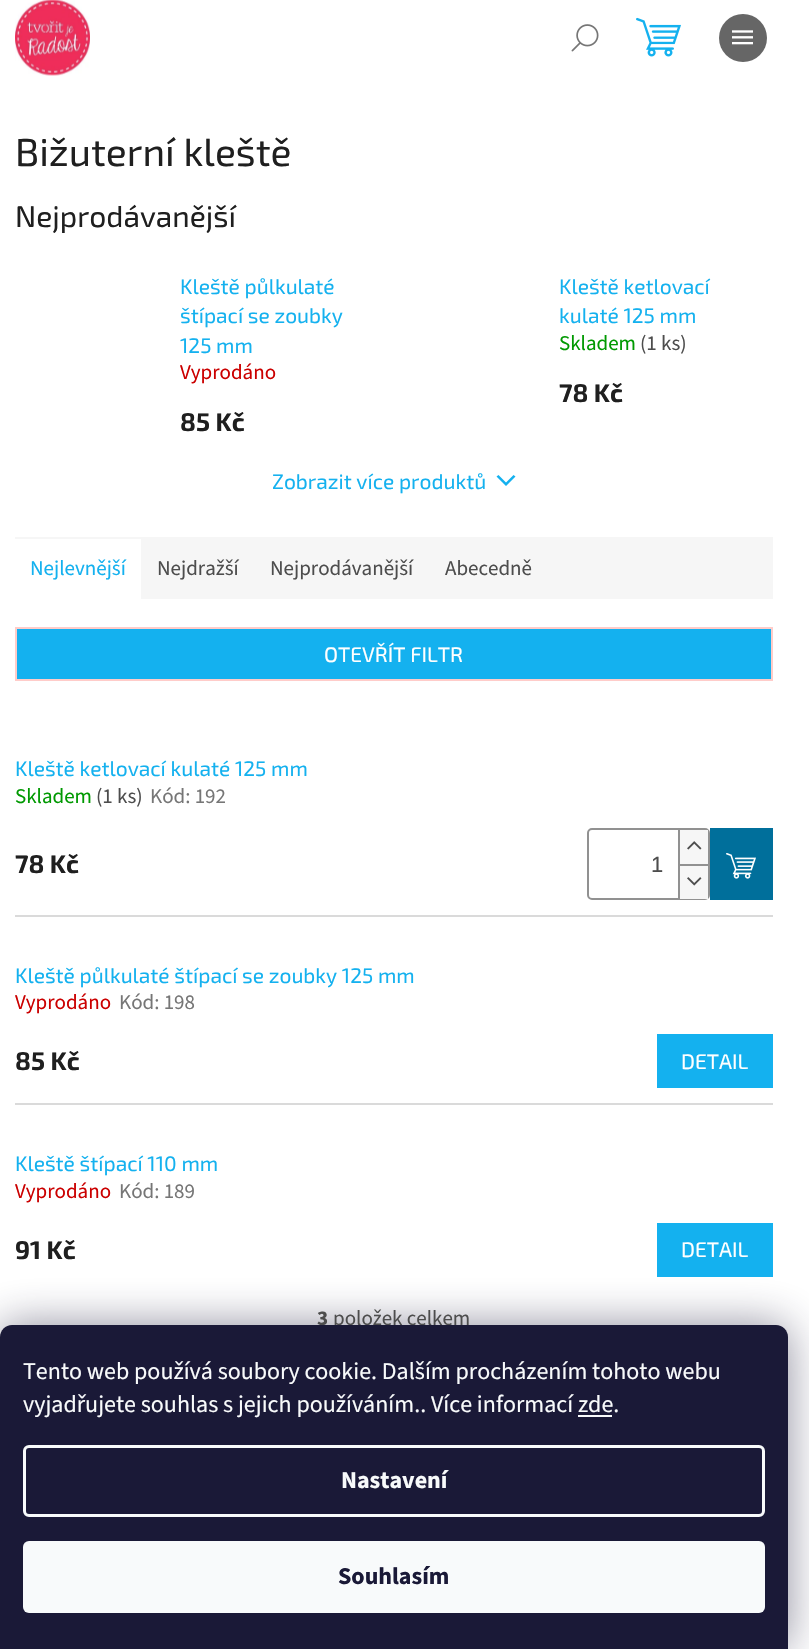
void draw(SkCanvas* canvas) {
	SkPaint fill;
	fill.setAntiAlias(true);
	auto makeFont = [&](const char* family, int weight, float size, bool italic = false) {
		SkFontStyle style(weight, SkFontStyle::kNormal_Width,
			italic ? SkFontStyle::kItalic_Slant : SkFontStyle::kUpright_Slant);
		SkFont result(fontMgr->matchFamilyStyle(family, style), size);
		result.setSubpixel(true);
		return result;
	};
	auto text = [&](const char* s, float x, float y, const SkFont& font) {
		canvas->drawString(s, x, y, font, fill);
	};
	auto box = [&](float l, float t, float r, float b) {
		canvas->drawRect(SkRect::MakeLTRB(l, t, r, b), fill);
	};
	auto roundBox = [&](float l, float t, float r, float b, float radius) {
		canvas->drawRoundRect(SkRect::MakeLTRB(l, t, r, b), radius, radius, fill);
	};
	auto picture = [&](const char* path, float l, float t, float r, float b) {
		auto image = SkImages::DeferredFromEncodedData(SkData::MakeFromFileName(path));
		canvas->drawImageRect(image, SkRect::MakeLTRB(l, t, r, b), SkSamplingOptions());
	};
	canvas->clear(0xFFFFFFFF);
	picture("image0.png", 15, 0, 90, 76);
	picture("image1.png", 636, 17, 681, 57);
	picture("image2.png", 571, 24, 599, 52);
	fill.setColor(0xFF666666);
	canvas->drawCircle(743, 38, 24, fill);
	picture("image3.png", 732, 30, 753, 45);
	fill.setColor(0xFF14B1EF);
	canvas->drawPath(SkPathBuilder().moveTo(496.5f, 476.5f).lineTo(498.5f, 475).lineTo(506, 482.5f).lineTo(513.5f, 475).lineTo(515.5f, 476.5f).lineTo(506, 486).close().detach(), fill);
	fill.setColor(0xFFF6F6F6);
	box(15, 537, 773, 599);
	fill.setColor(0xFFFFFFFF);
	box(15, 539, 141, 599);
	fill.setColor(0xFF14B1EF);
	canvas->drawRect(SkRect::MakeLTRB(16, 628, 772, 680), fill);
	fill.setStyle(SkPaint::kStroke_Style);
	fill.setStrokeWidth(2);
	fill.setColor(0xFFFFCCC9);
	canvas->drawRect(SkRect::MakeLTRB(16, 628, 772, 680), fill);
	fill.setColor(0xFF919191);
	canvas->drawRoundRect(SkRect::MakeLTRB(588, 829, 709, 899), 4, 4, fill);
	fill.setStyle(SkPaint::kFill_Style);
	fill.setColor(0xFFF6F6F6);
	box(680, 830, 708, 864);
	fill.setColor(0xFF919191);
	box(678, 830, 680, 864);
	picture("image4.png", 687, 841, 702, 850);
	fill.setColor(0xFFF6F6F6);
	box(680, 866, 708, 899);
	fill.setColor(0xFF919191);
	box(678, 864, 708, 866);
	box(678, 864, 680, 899);
	picture("image5.png", 687, 877, 702, 886);
	fill.setColor(0xFF006F9B);
	box(710, 828, 773, 900);
	picture("image6.png", 726, 853, 756, 879);
	fill.setColor(0xFFDADADA);
	box(15, 915, 773, 917);
	fill.setColor(0xFF14B1EF);
	box(657, 1034, 773, 1088);
	fill.setColor(0xFFDADADA);
	box(15, 1103, 773, 1105);
	fill.setColor(0xFF14B1EF);
	box(657, 1223, 773, 1277);
	fill.setColor(0x801B1939);
	fill.setMaskFilter(SkMaskFilter::MakeBlur(kNormal_SkBlurStyle, 22.5f));
	canvas->drawRoundRect(SkRect::MakeLTRB(0, 1325, 788, 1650), 12, 12, fill);
	fill.setMaskFilter(nullptr);
	auto font1 = makeFont("Exo 2", 400, 39);
	fill.setColor(0xFF1F1F1F);
	text("Bižuterní kleště", 15, 166, font1);
	auto font2 = makeFont("Exo 2", 400, 30);
	text("Nejprodávanější", 15, 227, font2);
	auto font3 = makeFont("Exo 2", 400, 21);
	fill.setColor(0xFF14B1EF);
	text("Kleště půlkulaté", 180, 294, font3);
	text("štípací se zoubky", 180, 323, font3);
	text("125 mm", 180, 353, font3);
	auto font4 = makeFont("Source Sans 3", 400, 21);
	fill.setColor(0xFFCB0000);
	text("Vyprodáno", 180, 379, font4);
	auto font5 = makeFont("Exo 2", 700, 25.5f);
	fill.setColor(0xFF1F1F1F);
	text("85 Kč", 180, 431, font5);
	fill.setColor(0xFF14B1EF);
	text("Kleště ketlovací", 559, 294, font3);
	text("kulaté 125 mm", 559, 323, font3);
	fill.setColor(0xFF009901);
	text("Skladem", 559, 350, font4);
	fill.setColor(0xFF4D4D4D);
	text("(1 ks)", 640, 350, font4);
	fill.setColor(0xFF1F1F1F);
	text("78 Kč", 559, 402, font5);
	fill.setColor(0xFF14B1EF);
	text("Zobrazit více produktů", 272, 489, font3);
	text("Nejlevnější", 30, 575, font4);
	fill.setColor(0xFF4D4D4D);
	text("Nejdražší", 157, 575, font4);
	text("Nejprodávanější", 270, 575, font4);
	text("Abecedně", 445, 575, font4);
	fill.setColor(0xFFFFFFFF);
	text("OTEVŘÍT FILTR", 324, 662, font3);
	fill.setColor(0xFF14B1EF);
	text("Kleště ketlovací kulaté 125 mm", 15, 776, font3);
	fill.setColor(0xFF009901);
	text("Skladem", 15, 803, font4);
	fill.setColor(0xFF4D4D4D);
	text("(1 ks)", 96, 803, font4);
	fill.setColor(0xFF767676);
	text("Kód: 192", 150, 803, font4);
	fill.setColor(0xFF1F1F1F);
	text("78 Kč", 15, 873, font5);
	auto font6 = makeFont("Liberation Sans", 400, 22);
	fill.setColor(0xFF4D4D4D);
	text("1", 651, 872, font6);
	fill.setColor(0xFF14B1EF);
	text("Kleště půlkulaté štípací se zoubky 125 mm", 15, 983, font3);
	fill.setColor(0xFFCB0000);
	text("Vyprodáno", 15, 1009, font4);
	fill.setColor(0xFF767676);
	text("Kód: 198", 119, 1009, font4);
	fill.setColor(0xFF1F1F1F);
	text("85 Kč", 15, 1070, font5);
	fill.setColor(0xFFFFFFFF);
	text("DETAIL", 681, 1069, font3);
	fill.setColor(0xFF14B1EF);
	text("Kleště štípací 110 mm", 15, 1171, font3);
	fill.setColor(0xFFCB0000);
	text("Vyprodáno", 15, 1198, font4);
	fill.setColor(0xFF767676);
	text("Kód: 189", 119, 1198, font4);
	fill.setColor(0xFF1F1F1F);
	text("91 Kč", 15, 1259, font5);
	fill.setColor(0xFFFFFFFF);
	text("DETAIL", 681, 1257, font3);
	auto font7 = makeFont("Source Sans 3", 700, 21);
	fill.setColor(0xFF4D4D4D);
	text("3", 317, 1325, font7);
	text("položek celkem", 333, 1325, font4);
	fill.setColor(0xFF1A1937);
	canvas->drawPath(SkPathBuilder().moveTo(12, 1325).lineTo(776, 1325).cubicTo(782.5f, 1325, 788, 1330.5f, 788, 1337).lineTo(788, 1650).lineTo(0, 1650).lineTo(0, 1337).cubicTo(0, 1330.5f, 5.5f, 1325, 12, 1325).close().detach(), fill);
	auto font8 = makeFont("Source Sans 3", 400, 24);
	fill.setColor(0xFFF8FAFB);
	text("Tento web používá soubory cookie. Dalším procházením tohoto webu", 23, 1379, font8);
	text("vyjadřujete souhlas s jejich používáním.. Více informací zde.", 23, 1412, font8);
	box(578, 1415, 612, 1417);
	fill.setStyle(SkPaint::kStroke_Style);
	fill.setStrokeWidth(3);
	canvas->drawRoundRect(SkRect::MakeLTRB(24.5f, 1446.5f, 763.5f, 1515.5f), 4.5f, 4.5f, fill);
	auto font9 = makeFont("Source Sans 3", 700, 24);
	fill.setStyle(SkPaint::kFill_Style);
	text("Nastavení", 341, 1488, font9);
	roundBox(23, 1541, 765, 1613, 6);
	fill.setColor(0xFF1A1937);
	text("Souhlasím", 338, 1584, font9);
}
